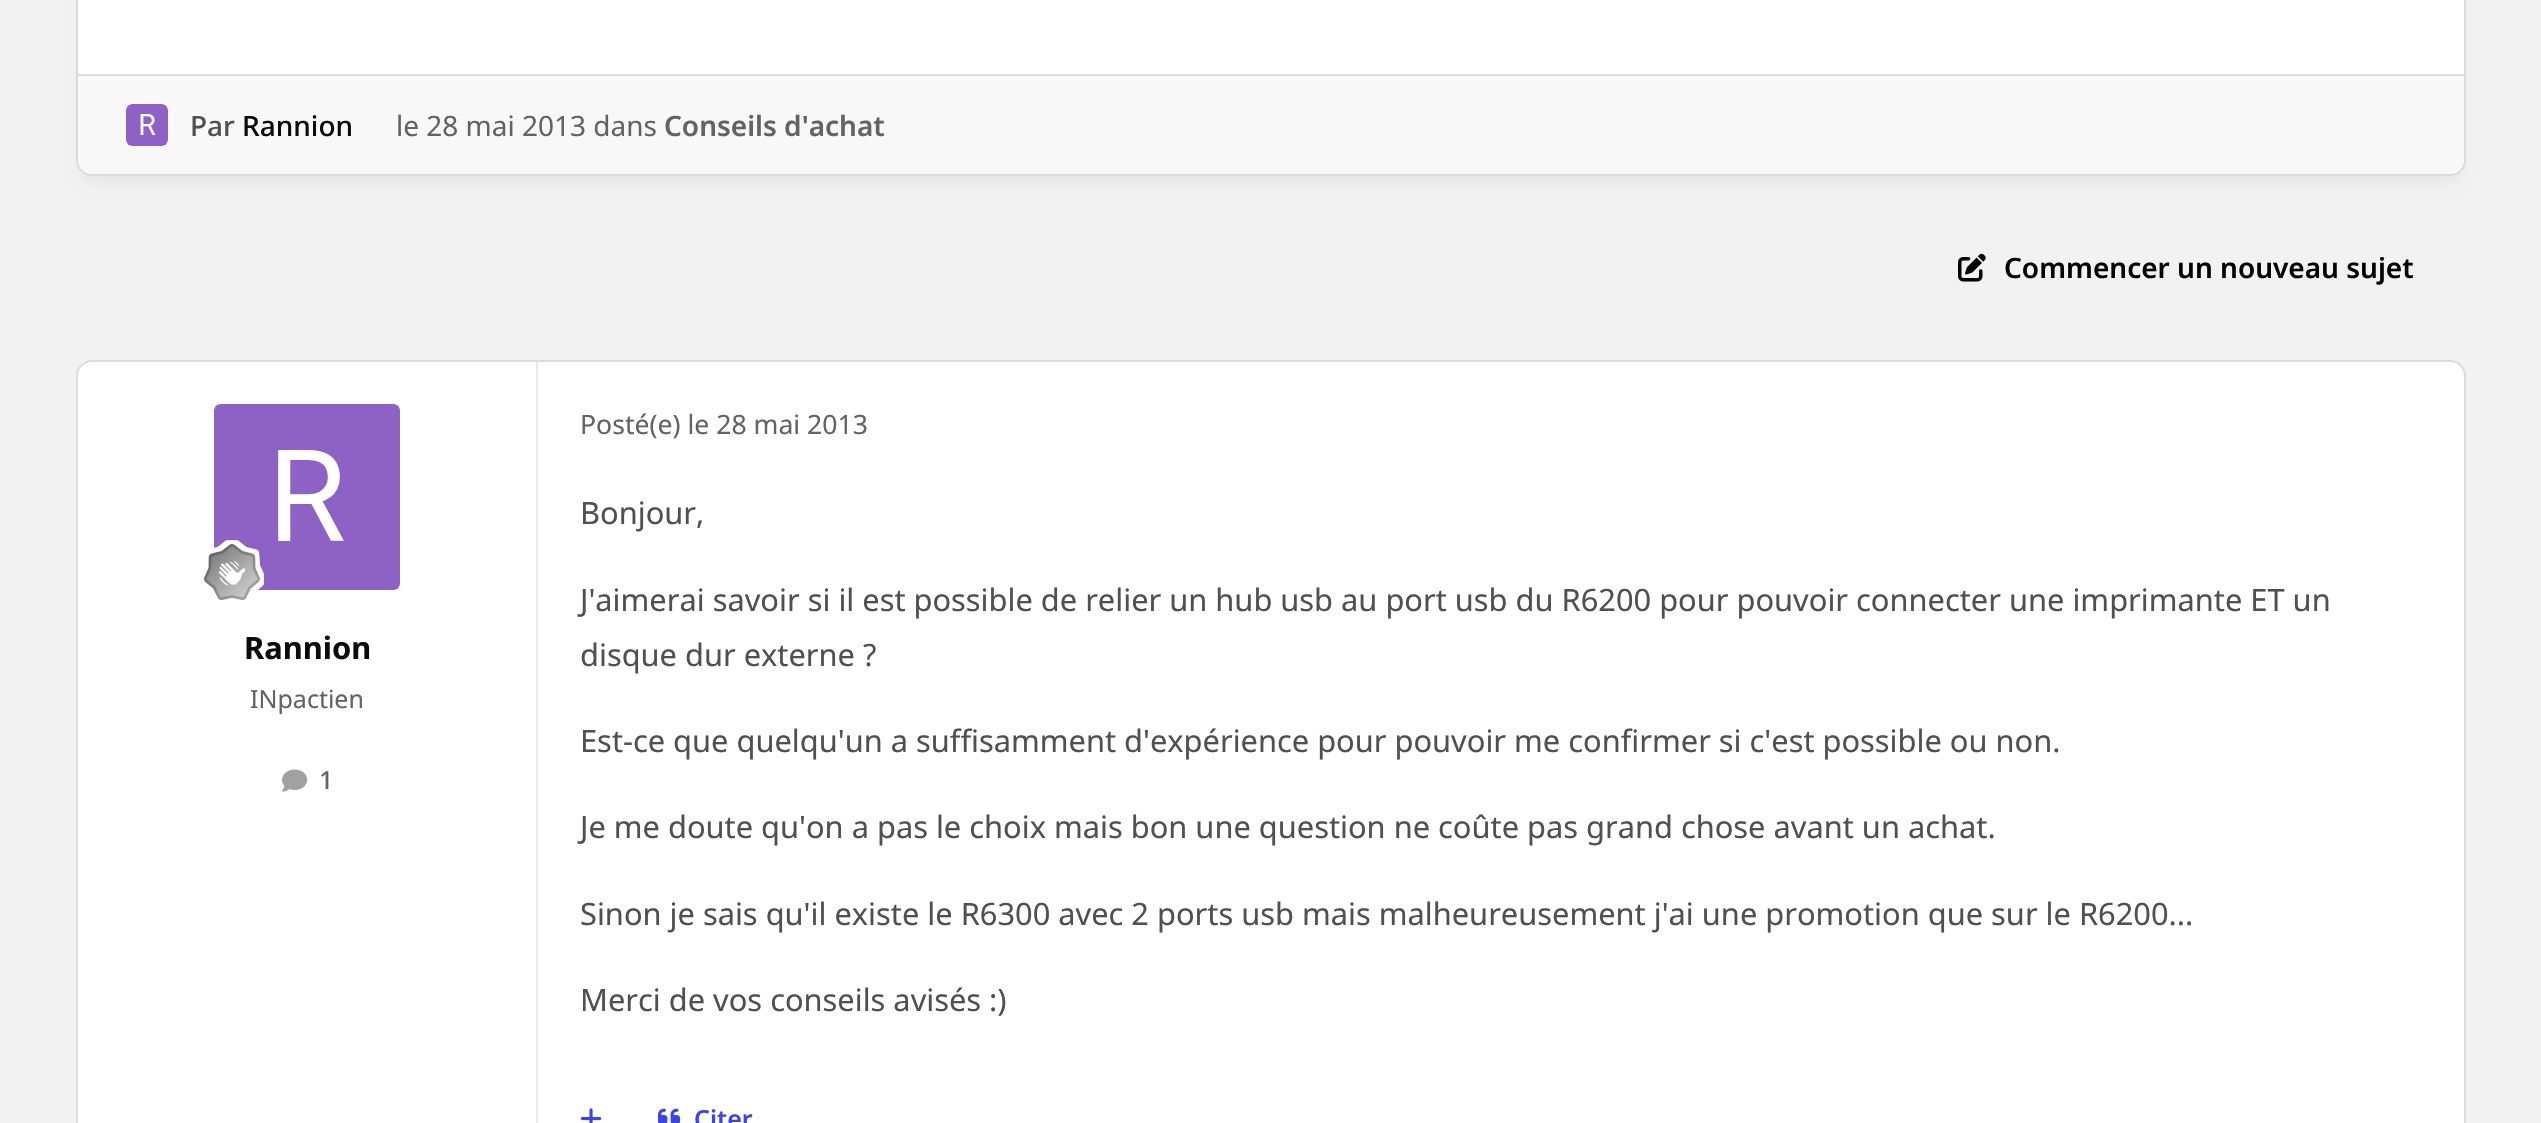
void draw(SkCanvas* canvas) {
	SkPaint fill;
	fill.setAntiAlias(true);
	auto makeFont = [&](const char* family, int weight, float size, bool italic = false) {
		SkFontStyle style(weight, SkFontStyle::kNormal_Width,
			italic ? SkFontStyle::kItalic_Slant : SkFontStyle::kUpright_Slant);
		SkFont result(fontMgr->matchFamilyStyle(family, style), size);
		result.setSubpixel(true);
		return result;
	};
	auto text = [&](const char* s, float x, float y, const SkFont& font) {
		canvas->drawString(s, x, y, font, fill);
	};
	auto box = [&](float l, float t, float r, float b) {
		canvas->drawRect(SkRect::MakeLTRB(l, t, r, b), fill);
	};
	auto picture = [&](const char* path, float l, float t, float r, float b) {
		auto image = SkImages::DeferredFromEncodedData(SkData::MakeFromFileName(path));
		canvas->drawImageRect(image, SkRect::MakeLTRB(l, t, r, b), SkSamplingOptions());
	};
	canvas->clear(0xFFF2F2F2);
	fill.setColor(0x0D030303);
	fill.setMaskFilter(SkMaskFilter::MakeBlur(kNormal_SkBlurStyle, 7));
	canvas->drawRoundRect(SkRect::MakeLTRB(82, -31, 2460, 182), 10, 10, fill);
	fill.setMaskFilter(nullptr);
	fill.setColor(0xFFFFFFFF);
	canvas->drawRoundRect(SkRect::MakeLTRB(77, -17, 2465, 175), 15, 15, fill);
	fill.setStyle(SkPaint::kStroke_Style);
	fill.setStrokeWidth(2);
	fill.setColor(0xFFDBDBDB);
	canvas->drawRoundRect(SkRect::MakeLTRB(77, -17, 2465, 175), 15, 15, fill);
	fill.setStyle(SkPaint::kFill_Style);
	fill.setColor(0xFFF8F8F8);
	canvas->drawPath(SkPathBuilder().moveTo(78, 74).lineTo(2464, 74).lineTo(2464, 158).cubicTo(2464, 167, 2457, 174, 2448, 174).lineTo(94, 174).cubicTo(85, 174, 78, 167, 78, 158).close().detach(), fill);
	fill.setColor(0xFFDEDEDE);
	box(78, 74, 2464, 76);
	picture("image0.png", 126, 104, 168, 146);
	picture("image1.png", 1958, 253, 1986, 282);
	fill.setColor(0xFFFFFFFF);
	canvas->drawRoundRect(SkRect::MakeLTRB(77, 361, 2465, 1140), 15, 15, fill);
	fill.setStyle(SkPaint::kStroke_Style);
	fill.setColor(0xFFDBDBDB);
	canvas->drawRoundRect(SkRect::MakeLTRB(77, 361, 2465, 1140), 15, 15, fill);
	fill.setStyle(SkPaint::kFill_Style);
	fill.setColor(0xFFEAEAEA);
	box(536, 362, 538, 1123);
	picture("image2.png", 214, 404, 400, 590);
	picture("image3.png", 204, 540, 264, 600);
	picture("image4.png", 282, 769, 308, 792);
	picture("image5.png", 580, 1108, 602, 1123);
	picture("image6.png", 658, 1108, 681, 1123);
	auto font1 = makeFont("Noto Sans", 500, 28);
	fill.setColor(0xFF505050);
	text("Par", 190, 136, font1);
	fill.setColor(0xFF0B0B0B);
	text("Rannion", 242, 136, font1);
	auto font2 = makeFont("Noto Sans", 400, 28);
	fill.setColor(0xFF636363);
	text("le 28 mai 2013 dans", 396, 136, font2);
	auto font3 = makeFont("Noto Sans", 600, 28);
	text("Conseils d'achat", 664, 136, font3);
	fill.setColor(0xFF030303);
	text("Commencer un nouveau sujet", 2004, 278, font3);
	auto font4 = makeFont("Noto Sans", 700, 30.8f);
	fill.setColor(0xFF0B0B0B);
	text("Rannion", 244, 659, font4);
	auto font5 = makeFont("Noto Sans", 400, 25);
	fill.setColor(0xFF636363);
	text("INpactien", 250, 708, font5);
	auto font6 = makeFont("Noto Sans", 500, 25);
	text("1", 319, 789, font6);
	auto font7 = makeFont("Noto Sans", 400, 26.6f);
	text("Posté(e) le 28 mai 2013", 580, 434, font7);
	auto font8 = makeFont("Noto Sans", 400, 30.8f);
	fill.setColor(0xFF505050);
	text("Bonjour,", 580, 524, font8);
	text("J'aimerai savoir si il est possible de relier un hub usb au port usb du R6200 pour pouvoir connecter une imprimante ET un", 580, 611, font8);
	text("disque dur externe ?", 580, 666, font8);
	text("Est-ce que quelqu'un a suffisamment d'expérience pour pouvoir me confirmer si c'est possible ou non.", 580, 752, font8);
	text("Je me doute qu'on a pas le choix mais bon une question ne coûte pas grand chose avant un achat.", 580, 838, font8);
	text("Sinon je sais qu'il existe le R6300 avec 2 ports usb mais malheureusement j'ai une promotion que sur le R6200...", 580, 925, font8);
	text("Merci de vos conseils avisés :)", 580, 1011, font8);
	auto font9 = makeFont("Noto Sans", 600, 25);
	fill.setColor(0xFF3C46E6);
	text("Citer", 694, 1128, font9);
}
